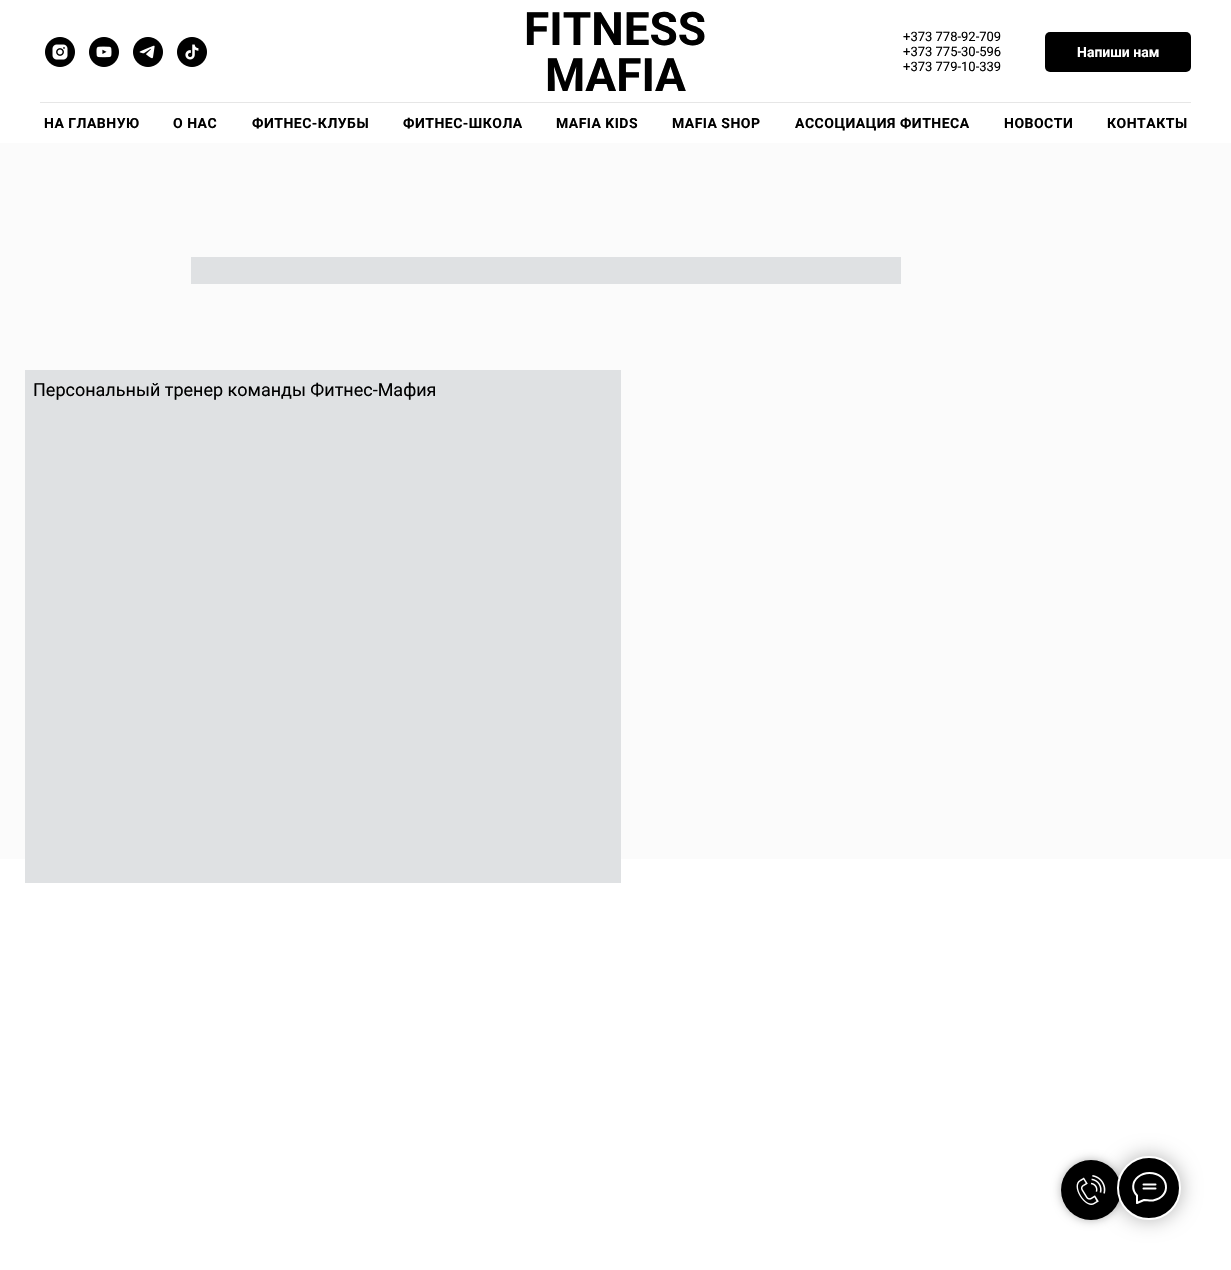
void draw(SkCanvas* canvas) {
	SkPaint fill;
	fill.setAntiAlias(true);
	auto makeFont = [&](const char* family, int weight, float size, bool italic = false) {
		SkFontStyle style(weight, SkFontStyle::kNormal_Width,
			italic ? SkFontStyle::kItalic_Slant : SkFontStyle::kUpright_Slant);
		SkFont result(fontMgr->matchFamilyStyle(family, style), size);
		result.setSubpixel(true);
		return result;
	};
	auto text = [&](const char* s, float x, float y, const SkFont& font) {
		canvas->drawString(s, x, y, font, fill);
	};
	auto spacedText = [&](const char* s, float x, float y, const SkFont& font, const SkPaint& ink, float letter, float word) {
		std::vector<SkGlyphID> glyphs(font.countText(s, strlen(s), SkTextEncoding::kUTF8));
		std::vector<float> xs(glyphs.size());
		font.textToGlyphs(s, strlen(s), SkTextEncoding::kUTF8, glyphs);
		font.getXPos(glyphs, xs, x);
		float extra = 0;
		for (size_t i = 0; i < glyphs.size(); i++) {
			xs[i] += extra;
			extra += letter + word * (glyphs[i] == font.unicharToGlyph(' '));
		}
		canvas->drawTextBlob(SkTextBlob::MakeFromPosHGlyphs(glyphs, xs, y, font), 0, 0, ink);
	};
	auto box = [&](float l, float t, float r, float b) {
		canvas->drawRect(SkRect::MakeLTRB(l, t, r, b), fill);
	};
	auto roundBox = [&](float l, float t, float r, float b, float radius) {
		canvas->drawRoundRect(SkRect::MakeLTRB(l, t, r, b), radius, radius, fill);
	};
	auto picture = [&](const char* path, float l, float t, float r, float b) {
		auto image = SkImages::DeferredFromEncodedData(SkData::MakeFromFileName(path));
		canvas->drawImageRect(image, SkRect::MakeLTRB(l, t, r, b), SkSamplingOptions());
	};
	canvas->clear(0xFFFFFFFF);
	picture("image0.png", 45, 37, 75, 67);
	picture("image1.png", 89, 37, 119, 67);
	picture("image2.png", 133, 37, 163, 67);
	picture("image3.png", 177, 37, 207, 67);
	fill.setColor(0xFF000000);
	roundBox(1045, 32, 1191, 72, 5);
	fill.setColor(0xFFE6E6E6);
	box(40, 102, 1191, 103);
	fill.setColor(0x4D000000);
	fill.setMaskFilter(SkMaskFilter::MakeBlur(kNormal_SkBlurStyle, 5));
	canvas->drawRoundRect(SkRect::MakeLTRB(1061, 1160, 1121, 1220), 30, 30, fill);
	fill.setMaskFilter(nullptr);
	fill.setColor(0xFF000000);
	canvas->drawCircle(1091, 1190, 30, fill);
	picture("image4.png", 1076, 1175, 1106, 1205);
	fill.setColor(0x4D000000);
	fill.setMaskFilter(SkMaskFilter::MakeBlur(kNormal_SkBlurStyle, 10));
	canvas->drawRoundRect(SkRect::MakeLTRB(1117, 1156, 1181, 1220), 32, 32, fill);
	fill.setMaskFilter(nullptr);
	fill.setColor(0xFF000000);
	canvas->drawCircle(1149, 1188, 31, fill);
	fill.setStyle(SkPaint::kStroke_Style);
	fill.setStrokeWidth(2);
	fill.setColor(0xFFFFFFFF);
	canvas->drawCircle(1149, 1188, 31, fill);
	fill.setStrokeCap(SkPaint::kRound_Cap);
	fill.setStrokeJoin(SkPaint::kRound_Join);
	canvas->drawPath(SkPathBuilder().moveTo(1143.5f, 1184.5f).lineTo(1155.5f, 1184.5f).moveTo(1143.5f, 1188.5f).lineTo(1155.5f, 1188.5f).moveTo(1137, 1195.5f).cubicTo(1131.5f, 1190, 1132, 1182, 1138, 1177).cubicTo(1141, 1174.5f, 1145.5f, 1173, 1149.5f, 1173).cubicTo(1169, 1173, 1172.5f, 1197, 1153, 1200.5f).cubicTo(1149, 1201, 1147.5f, 1200, 1144, 1200).lineTo(1137, 1203).lineTo(1137, 1196).close().detach(), fill);
	fill.setStyle(SkPaint::kFill_Style);
	fill.setColor(0xFFFBFBFB);
	box(0, 143, 1231, 859);
	fill.setColor(0xFFDFE1E3);
	box(191, 257, 901, 284);
	box(25, 370, 621, 883);
	auto font1 = makeFont("Roboto", 700, 46);
	fill.setColor(0xFF000000);
	text("FITNESS", 524, 45, font1);
	text("MAFIA", 545, 91, font1);
	auto font2 = makeFont("Roboto", 400, 13);
	text("+373 778-92-709", 903, 41, font2);
	text("+373 775-30-596", 903, 56, font2);
	text("+373 779-10-339", 903, 71, font2);
	auto font3 = makeFont("Roboto", 700, 14);
	fill.setColor(0xFFFFFFFF);
	text("Напиши нам", 1077, 57, font3);
	fill.setColor(0xFF000000);
	spacedText("НА ГЛАВНУЮ", 44, 128, font3, fill, 0.5f, 0);
	spacedText("О НАС", 173, 128, font3, fill, 0.5f, 0);
	spacedText("ФИТНЕС-КЛУБЫ", 252, 128, font3, fill, 0.5f, 0);
	spacedText("ФИТНЕС-ШКОЛА", 403, 128, font3, fill, 0.5f, 0);
	spacedText("MAFIA KIDS", 556, 128, font3, fill, 0.5f, 0);
	spacedText("MAFIA SHOP", 672, 128, font3, fill, 0.5f, 0);
	spacedText("АССОЦИАЦИЯ ФИТНЕСА", 795, 128, font3, fill, 0.5f, 0);
	spacedText("НОВОСТИ", 1004, 128, font3, fill, 0.5f, 0);
	spacedText("КОНТАКТЫ", 1107, 128, font3, fill, 0.5f, 0);
	auto font4 = makeFont("Roboto", 400, 18);
	text("Персональный тренер команды Фитнес-Мафия", 33, 396, font4);
}
